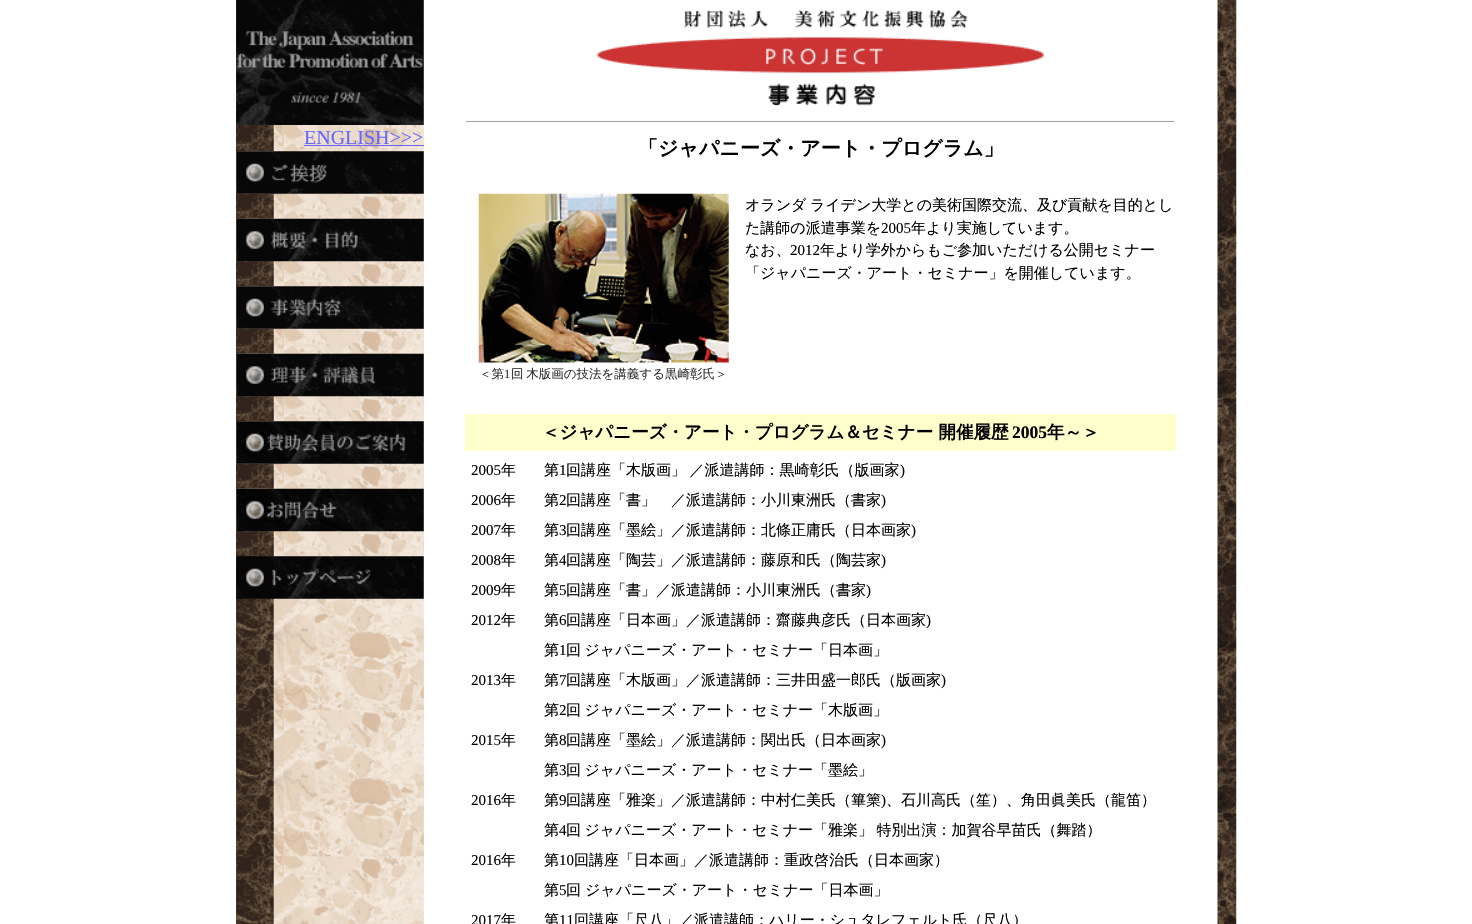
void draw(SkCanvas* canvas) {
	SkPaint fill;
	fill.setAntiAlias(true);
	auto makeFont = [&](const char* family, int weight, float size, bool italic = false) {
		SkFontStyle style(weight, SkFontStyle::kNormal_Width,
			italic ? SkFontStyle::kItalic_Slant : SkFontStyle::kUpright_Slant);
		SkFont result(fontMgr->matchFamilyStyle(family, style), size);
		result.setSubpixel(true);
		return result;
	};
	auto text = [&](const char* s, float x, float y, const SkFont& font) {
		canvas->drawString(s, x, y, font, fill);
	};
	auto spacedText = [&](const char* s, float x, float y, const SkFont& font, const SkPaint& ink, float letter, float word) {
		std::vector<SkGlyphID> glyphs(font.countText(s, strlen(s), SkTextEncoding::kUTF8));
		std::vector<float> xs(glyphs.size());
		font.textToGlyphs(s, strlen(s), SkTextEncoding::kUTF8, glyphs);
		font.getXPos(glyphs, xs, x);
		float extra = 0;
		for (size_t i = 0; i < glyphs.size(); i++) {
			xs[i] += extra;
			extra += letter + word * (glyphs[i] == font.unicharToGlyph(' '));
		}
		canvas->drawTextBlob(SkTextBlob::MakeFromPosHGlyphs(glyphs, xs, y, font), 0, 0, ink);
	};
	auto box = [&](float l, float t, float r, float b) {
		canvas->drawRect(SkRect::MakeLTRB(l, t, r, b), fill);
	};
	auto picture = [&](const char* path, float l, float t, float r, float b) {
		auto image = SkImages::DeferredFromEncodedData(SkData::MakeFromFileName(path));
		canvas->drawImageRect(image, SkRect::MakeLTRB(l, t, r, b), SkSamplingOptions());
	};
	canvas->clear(0xFFFFFFFF);
	picture("image0.png", 236, 0, 424, 924);
	picture("image1.png", 236, 0, 424, 125);
	picture("image2.png", 236, 0, 424, 125);
	picture("image3.png", 236, 125, 424, 924);
	picture("image4.png", 236, 125, 424, 599);
	picture("image5.png", 236, 125, 416, 127);
	picture("image6.png", 236, 126, 424, 152);
	fill.setColor(0xFF6666FF);
	box(304, 145, 424, 146);
	picture("image7.png", 236, 151, 424, 194);
	picture("image9.png", 236, 193, 424, 219);
	picture("image8.png", 236, 151, 424, 194);
	picture("image10.png", 236, 218, 424, 262);
	picture("image12.png", 236, 261, 424, 287);
	picture("image11.png", 236, 218, 424, 262);
	picture("image13.png", 236, 286, 424, 329);
	picture("image15.png", 236, 328, 424, 354);
	picture("image14.png", 236, 286, 424, 329);
	picture("image16.png", 236, 353, 424, 397);
	picture("image18.png", 236, 396, 424, 422);
	picture("image17.png", 236, 353, 424, 397);
	picture("image19.png", 236, 421, 424, 464);
	picture("image21.png", 236, 463, 424, 489);
	picture("image20.png", 236, 421, 424, 464);
	picture("image22.png", 236, 488, 424, 532);
	picture("image24.png", 236, 531, 424, 557);
	picture("image23.png", 236, 488, 424, 532);
	picture("image25.png", 236, 556, 424, 599);
	picture("image26.png", 236, 556, 424, 599);
	picture("image27.png", 597, 9, 1044, 106);
	fill.setColor(0xFF9F9F9F);
	box(466, 121, 1175, 122);
	fill.setColor(0xFFEEEEEE);
	box(1174, 121, 1175, 122);
	picture("image28.png", 478, 193, 729, 363);
	fill.setColor(0xFFFFFFCC);
	box(465, 414, 1176, 451);
	picture("image29.png", 1217, 0, 1237, 924);
	auto font1 = makeFont("Liberation Serif", 400, 20);
	fill.setColor(0xFF6666FF);
	text("ENGLISH>>>", 304, 144, font1);
	auto font2 = makeFont("WenQuanYi Zen Hei", 700, 20);
	fill.setColor(0xFF000000);
	text("「ジャパニーズ・アート・プログラム」", 638, 155, font2);
	auto font3 = makeFont("WenQuanYi Zen Hei", 500, 15);
	spacedText("オランダ ライデン大学との美術国際交流、及び貢献を目的とし", 745, 210, font3, fill, 0, -1);
	text("た講師の派遣事業を", 745, 233, font3);
	auto font4 = makeFont("Liberation Serif", 400, 15);
	text("2005", 881, 233, font4);
	text("年より実施しています。", 911, 233, font3);
	text("なお、", 745, 255, font3);
	text("2012", 790, 255, font4);
	text("年より学外からもご参加いただける公開セミナー", 820, 255, font3);
	text("「ジャパニーズ・アート・セミナー」を開催しています。", 745, 278, font3);
	auto font5 = makeFont("WenQuanYi Zen Hei", 500, 12.5f);
	fill.setColor(0xFF333333);
	text("＜第", 479, 378, font5);
	auto font6 = makeFont("Liberation Serif", 400, 12.5f);
	text("1", 504, 378, font6);
	spacedText("回 木版画の技法を講義する黒崎彰氏＞", 511, 378, font5, fill, 0, -1);
	auto font7 = makeFont("WenQuanYi Zen Hei", 700, 17.5f);
	fill.setColor(0xFF000000);
	text("＜ジャパニーズ・アート・プログラム＆セミナー 開催履歴", 542, 438, font7);
	auto font8 = makeFont("Liberation Serif", 700, 17.5f);
	text("2005", 1012, 438, font8);
	text("年～＞", 1047, 438, font7);
	text("2005", 471, 475, font4);
	text("年", 501, 475, font3);
	text("第", 544, 475, font3);
	text("1", 559, 475, font4);
	spacedText("回講座「木版画」 ／派遣講師：黒崎彰氏（版画家", 566, 475, font3, fill, 0, -1);
	text(")", 900, 475, font4);
	text("2006", 471, 505, font4);
	text("年", 501, 505, font3);
	text("第", 544, 505, font3);
	text("2", 559, 505, font4);
	text("回講座「書」　／派遣講師：小川東洲氏（書家", 566, 505, font3);
	text(")", 881, 505, font4);
	text("2007", 471, 535, font4);
	text("年", 501, 535, font3);
	text("第", 544, 535, font3);
	text("3", 559, 535, font4);
	text("回講座「墨絵」／派遣講師：北條正庸氏（日本画家", 566, 535, font3);
	text(")", 911, 535, font4);
	text("2008", 471, 565, font4);
	text("年", 501, 565, font3);
	text("第", 544, 565, font3);
	text("4", 559, 565, font4);
	text("回講座「陶芸」／派遣講師：藤原和氏（陶芸家", 566, 565, font3);
	text(")", 881, 565, font4);
	text("2009", 471, 595, font4);
	text("年", 501, 595, font3);
	text("第", 544, 595, font3);
	text("5", 559, 595, font4);
	text("回講座「書」／派遣講師：小川東洲氏（書家", 566, 595, font3);
	text(")", 866, 595, font4);
	text("2012", 471, 625, font4);
	text("年", 501, 625, font3);
	text("第", 544, 625, font3);
	text("6", 559, 625, font4);
	text("回講座「日本画」／派遣講師：齋藤典彦氏（日本画家", 566, 625, font3);
	text(")", 926, 625, font4);
	text("第", 544, 655, font3);
	text("1", 559, 655, font4);
	spacedText("回 ジャパニーズ・アート・セミナー「日本画」", 566, 655, font3, fill, 0, -1);
	text("2013", 471, 685, font4);
	text("年", 501, 685, font3);
	text("第", 544, 685, font3);
	text("7", 559, 685, font4);
	text("回講座「木版画」／派遣講師：三井田盛一郎氏（版画家", 566, 685, font3);
	text(")", 941, 685, font4);
	text("第", 544, 715, font3);
	text("2", 559, 715, font4);
	spacedText("回 ジャパニーズ・アート・セミナー「木版画」", 566, 715, font3, fill, 0, -1);
	text("2015", 471, 745, font4);
	text("年", 501, 745, font3);
	text("第", 544, 745, font3);
	text("8", 559, 745, font4);
	text("回講座「墨絵」／派遣講師：関出氏（日本画家", 566, 745, font3);
	text(")", 881, 745, font4);
	text("第", 544, 775, font3);
	text("3", 559, 775, font4);
	spacedText("回 ジャパニーズ・アート・セミナー「墨絵」", 566, 775, font3, fill, 0, -1);
	text("2016", 471, 805, font4);
	text("年", 501, 805, font3);
	text("第", 544, 805, font3);
	text("9", 559, 805, font4);
	text("回講座「雅楽」／派遣講師：中村仁美氏（篳篥", 566, 805, font3);
	text(")", 881, 805, font4);
	text("、石川高氏（笙）、角田眞美氏（龍笛）", 886, 805, font3);
	text("第", 544, 835, font3);
	text("4", 559, 835, font4);
	spacedText("回 ジャパニーズ・アート・セミナー「雅楽」 特別出演：加賀谷早苗氏（舞踏）", 566, 835, font3, fill, 0, -1);
	text("2016", 471, 865, font4);
	text("年", 501, 865, font3);
	text("第", 544, 865, font3);
	text("10", 559, 865, font4);
	text("回講座「日本画」／派遣講師：重政啓治氏（日本画家）", 574, 865, font3);
	text("第", 544, 895, font3);
	text("5", 559, 895, font4);
	text("回", 566, 895, font3);
	text("ジャパニーズ・アート・セミナー「日本画」", 585, 895, font3);
	text("2017", 471, 925, font4);
	text("年", 501, 925, font3);
	text("第", 544, 925, font3);
	text("11", 559, 925, font4);
	text("回講座「尺八」／派遣講師：ハリー・シュタレフェルト氏（尺八）", 574, 925, font3);
}
